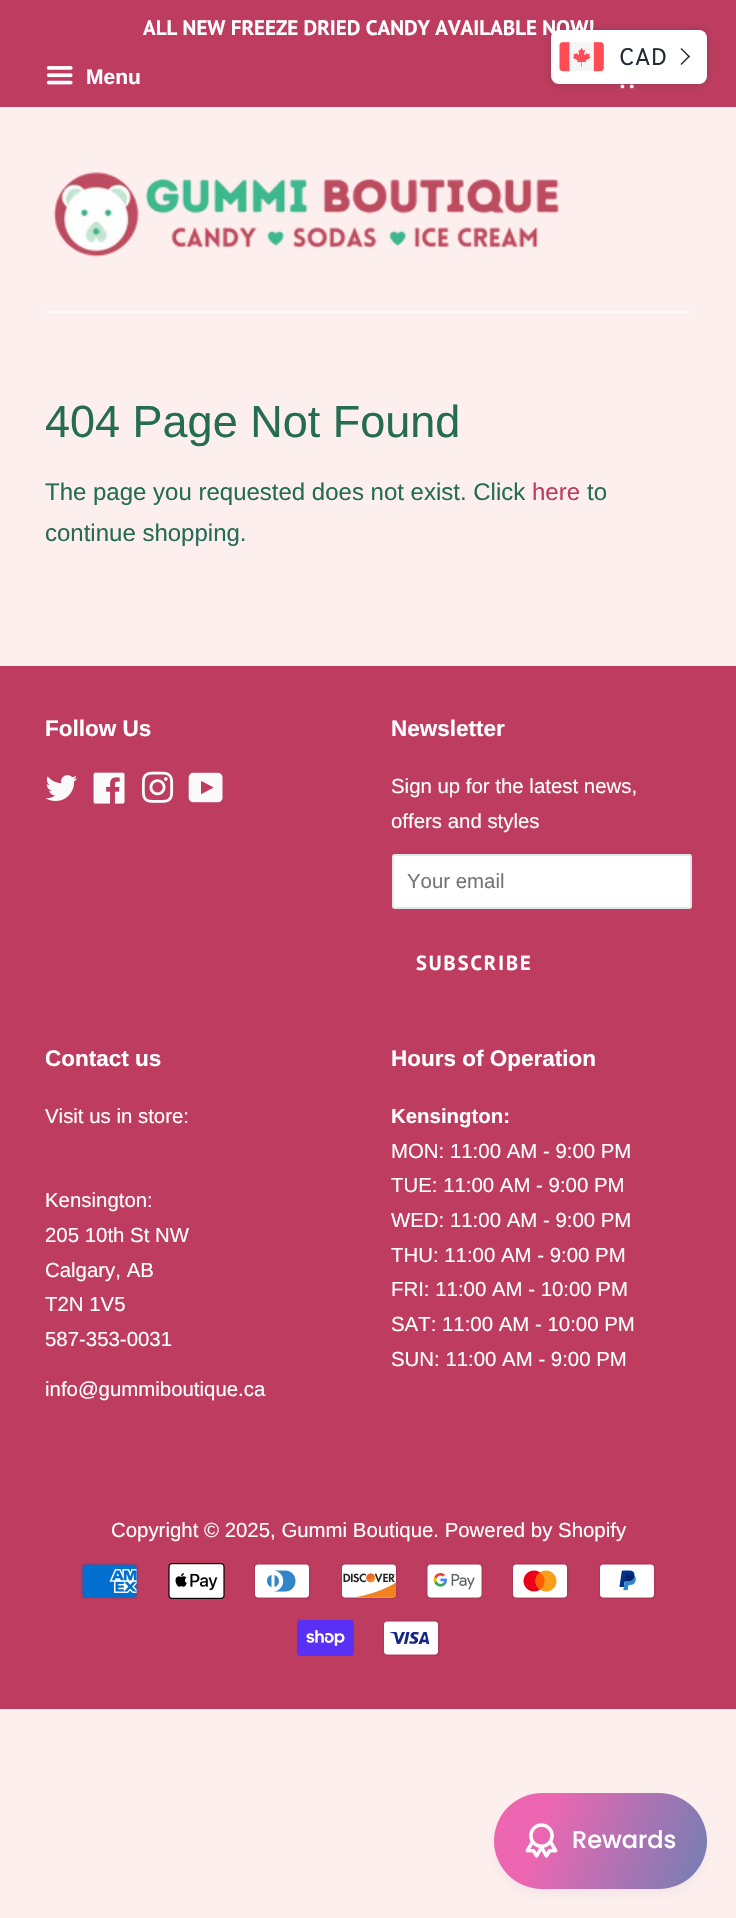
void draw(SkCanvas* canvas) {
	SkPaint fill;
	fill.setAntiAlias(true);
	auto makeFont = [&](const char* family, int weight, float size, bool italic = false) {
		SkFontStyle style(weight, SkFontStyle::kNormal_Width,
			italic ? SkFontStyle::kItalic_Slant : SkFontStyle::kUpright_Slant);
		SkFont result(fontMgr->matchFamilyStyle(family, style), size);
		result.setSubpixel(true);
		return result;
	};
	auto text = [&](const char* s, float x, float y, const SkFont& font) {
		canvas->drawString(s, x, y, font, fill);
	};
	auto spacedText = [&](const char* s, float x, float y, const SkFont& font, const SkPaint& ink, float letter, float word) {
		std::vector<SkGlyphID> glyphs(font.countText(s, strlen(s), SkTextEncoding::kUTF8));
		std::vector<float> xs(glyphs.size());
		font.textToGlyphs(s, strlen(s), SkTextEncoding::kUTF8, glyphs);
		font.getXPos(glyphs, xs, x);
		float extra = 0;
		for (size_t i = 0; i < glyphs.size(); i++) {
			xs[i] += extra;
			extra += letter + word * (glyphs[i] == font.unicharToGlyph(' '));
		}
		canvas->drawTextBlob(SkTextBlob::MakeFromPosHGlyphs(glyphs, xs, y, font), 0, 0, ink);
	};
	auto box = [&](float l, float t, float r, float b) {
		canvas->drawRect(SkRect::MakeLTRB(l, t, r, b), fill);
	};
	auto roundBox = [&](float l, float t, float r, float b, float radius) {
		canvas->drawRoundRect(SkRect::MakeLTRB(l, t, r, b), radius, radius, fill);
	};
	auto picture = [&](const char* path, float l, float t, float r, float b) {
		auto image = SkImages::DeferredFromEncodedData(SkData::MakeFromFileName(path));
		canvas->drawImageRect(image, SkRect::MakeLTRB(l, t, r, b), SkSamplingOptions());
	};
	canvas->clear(0xFFFEEFEF);
	fill.setColor(0xFFBD3C5F);
	box(0, 0, 736, 107);
	picture("image0.png", 46, 66, 73, 85);
	picture("image1.png", 620, 84, 634, 89);
	fill.setColor(0xFFFAFAFA);
	box(45, 311, 692, 313);
	picture("image2.png", 53, 172, 559, 257);
	fill.setColor(0x40212B36);
	fill.setMaskFilter(SkMaskFilter::MakeBlur(kNormal_SkBlurStyle, 4));
	canvas->drawRoundRect(SkRect::MakeLTRB(551, 30, 707, 84), 8, 8, fill);
	fill.setMaskFilter(nullptr);
	fill.setColor(0xFFFFFFFF);
	roundBox(551, 30, 707, 84, 8);
	picture("image3.png", 559, 42, 604, 72);
	fill.setColor(0xFF212B36);
	canvas->drawPath(SkPathBuilder().moveTo(680.5f, 49).lineTo(681.5f, 48).lineTo(690, 56.5f).lineTo(689, 57.5f).close().detach(), fill);
	canvas->drawPath(SkPathBuilder().moveTo(680.5f, 64).lineTo(689, 55.5f).lineTo(690, 56.5f).lineTo(681.5f, 65).close().detach(), fill);
	fill.setColor(0xFFBD3C5F);
	box(0, 666, 736, 1709);
	picture("image4.png", 45, 775, 78, 801);
	picture("image5.png", 93, 772, 125, 804);
	picture("image6.png", 141, 771, 174, 803);
	picture("image7.png", 188, 772, 223, 803);
	fill.setColor(0xFFFFFFFF);
	roundBox(392, 854, 692, 909, 3);
	fill.setStyle(SkPaint::kStroke_Style);
	fill.setStrokeWidth(2);
	fill.setColor(0x26246C54);
	canvas->drawRoundRect(SkRect::MakeLTRB(393, 855, 691, 908), 2, 2, fill);
	picture("image8.png", 81, 1563, 138, 1599);
	picture("image9.png", 168, 1563, 225, 1599);
	picture("image10.png", 254, 1563, 311, 1599);
	picture("image11.png", 341, 1563, 398, 1599);
	picture("image12.png", 426, 1563, 483, 1599);
	picture("image13.png", 512, 1563, 569, 1599);
	picture("image14.png", 599, 1563, 656, 1599);
	picture("image15.png", 297, 1620, 354, 1656);
	picture("image16.png", 383, 1620, 440, 1656);
	fill.setStyle(SkPaint::kFill_Style);
	fill.setColor(0x14444444);
	fill.setMaskFilter(SkMaskFilter::MakeBlur(kNormal_SkBlurStyle, 6));
	canvas->drawRoundRect(SkRect::MakeLTRB(497, 1802, 704, 1892), 45, 45, fill);
	fill.setMaskFilter(nullptr);
	{
		const SkColor colors[] = {0xFFED66B2, 0xFF2F8DB4};
		const float stops[] = {0.17f, 1};
		const SkPoint ends[] = {{490, 1802}, {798, 1911}};
		fill.setShader(SkGradientShader::MakeLinear(ends, colors, stops, 2, SkTileMode::kClamp));
		fill.setAlpha(255);
	}
	roundBox(494, 1793, 707, 1889, 48);
	picture("image17.png", 525, 1823, 558, 1858);
	auto font1 = makeFont("PT Sans", 700, 21);
	fill.setShader(nullptr);
	fill.setColor(0xFFFFFFFF);
	text("ALL NEW FREEZE DRIED CANDY AVAILABLE NOW!", 143, 35, font1);
	auto font2 = makeFont("Liberation Sans", 700, 21);
	text("Menu", 86, 84, font2);
	auto font3 = makeFont("Overpass", 400, 24);
	fill.setColor(0xFF212B36);
	text("CAD", 619, 65, font3);
	auto font4 = makeFont("Liberation Sans", 400, 45);
	fill.setColor(0xFF246C54);
	text("404 Page Not Found", 45, 437, font4);
	auto font5 = makeFont("Liberation Sans", 400, 24);
	text("The page you requested does not exist. Click", 45, 500, font5);
	fill.setColor(0xFFBD3C5F);
	text("here", 532, 500, font5);
	fill.setColor(0xFF246C54);
	text("to", 587, 500, font5);
	text("continue shopping.", 45, 541, font5);
	auto font6 = makeFont("Liberation Sans", 700, 22.5f);
	fill.setColor(0xFFFFFFFF);
	text("Follow Us", 45, 736, font6);
	text("Newsletter", 391, 736, font6);
	auto font7 = makeFont("Liberation Sans", 400, 20.4f);
	text("Sign up for the latest news,", 391, 793, font7);
	text("offers and styles", 391, 828, font7);
	fill.setColor(0xFF757575);
	text("Your email", 407, 888, font7);
	auto font8 = makeFont("PT Sans", 700, 20.4f);
	fill.setColor(0xFFFFFFFF);
	spacedText("SUBSCRIBE", 416, 970, font8, fill, 2, 0);
	text("Contact us", 45, 1066, font6);
	text("Visit us in store:", 45, 1123, font7);
	text("Kensington:", 45, 1207, font7);
	text("205 10th St NW", 45, 1242, font7);
	text("Calgary, AB", 45, 1277, font7);
	text("T2N 1V5", 45, 1311, font7);
	text("587-353-0031", 45, 1346, font7);
	text("info@gummiboutique.ca", 45, 1396, font7);
	text("Hours of Operation", 391, 1066, font6);
	auto font9 = makeFont("Liberation Sans", 700, 20.4f);
	text("Kensington:", 391, 1123, font9);
	text("MON: 11:00 AM - 9:00 PM", 391, 1158, font7);
	text("TUE: 11:00 AM - 9:00 PM", 391, 1192, font7);
	text("WED: 11:00 AM - 9:00 PM", 391, 1227, font7);
	text("THU: 11:00 AM - 9:00 PM", 391, 1262, font7);
	text("FRI: 11:00 AM - 10:00 PM", 391, 1296, font7);
	text("SAT: 11:00 AM - 10:00 PM", 391, 1331, font7);
	text("SUN: 11:00 AM - 9:00 PM", 391, 1366, font7);
	text("Copyright © 2025, Gummi Boutique. Powered by Shopify", 111, 1537, font7);
	auto font10 = makeFont("Poppins", 500, 24);
	text("Rewards", 572, 1848, font10);
}
